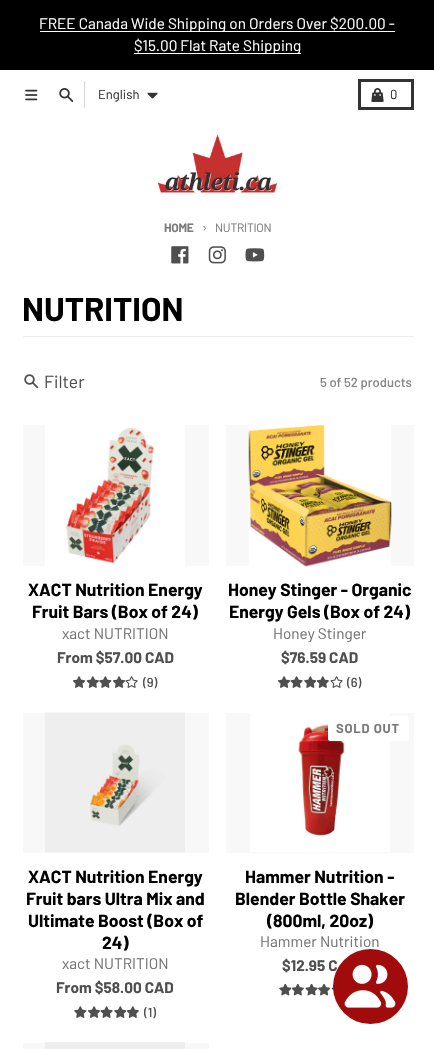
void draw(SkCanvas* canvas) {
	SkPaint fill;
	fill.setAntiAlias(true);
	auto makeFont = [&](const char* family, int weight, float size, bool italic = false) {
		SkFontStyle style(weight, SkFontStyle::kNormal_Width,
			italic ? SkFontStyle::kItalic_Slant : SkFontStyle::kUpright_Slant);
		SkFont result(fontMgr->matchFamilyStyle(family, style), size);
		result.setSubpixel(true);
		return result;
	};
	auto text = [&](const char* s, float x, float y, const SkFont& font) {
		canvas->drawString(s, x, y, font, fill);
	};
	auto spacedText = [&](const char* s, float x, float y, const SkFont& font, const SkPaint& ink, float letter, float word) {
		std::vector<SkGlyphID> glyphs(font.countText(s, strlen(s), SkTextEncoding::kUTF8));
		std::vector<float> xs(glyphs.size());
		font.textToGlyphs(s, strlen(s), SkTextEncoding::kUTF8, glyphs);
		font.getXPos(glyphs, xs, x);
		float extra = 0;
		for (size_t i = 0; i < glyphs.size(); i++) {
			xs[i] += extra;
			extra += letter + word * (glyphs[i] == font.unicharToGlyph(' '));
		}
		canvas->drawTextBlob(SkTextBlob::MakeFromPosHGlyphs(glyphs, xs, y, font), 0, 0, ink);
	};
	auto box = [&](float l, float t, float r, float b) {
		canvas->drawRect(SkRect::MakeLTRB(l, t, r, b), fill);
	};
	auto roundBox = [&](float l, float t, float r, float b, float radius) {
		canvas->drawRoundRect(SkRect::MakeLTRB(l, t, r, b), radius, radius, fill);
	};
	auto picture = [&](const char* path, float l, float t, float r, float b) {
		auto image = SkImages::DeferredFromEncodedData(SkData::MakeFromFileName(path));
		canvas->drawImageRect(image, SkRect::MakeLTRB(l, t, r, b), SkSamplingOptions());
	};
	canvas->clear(0xFFFFFFFF);
	fill.setColor(0xFF000000);
	box(0, 0, 434, 70);
	fill.setColor(0xFFFFFFFF);
	box(40, 31, 395, 32);
	box(134, 53, 301, 54);
	picture("image0.png", 25, 89, 38, 101);
	picture("image1.png", 59, 88, 74, 102);
	fill.setColor(0xFFD6D6D6);
	box(84, 81, 85, 108);
	picture("image2.png", 147, 92, 158, 99);
	fill.setStyle(SkPaint::kStroke_Style);
	fill.setStrokeWidth(3);
	fill.setColor(0xFF333333);
	canvas->drawRect(SkRect::MakeLTRB(359.5f, 80.5f, 412.5f, 108.5f), fill);
	picture("image3.png", 371, 88, 384, 102);
	picture("image4.png", 156, 133, 280, 193);
	picture("image5.png", 171, 246, 189, 264);
	picture("image6.png", 208, 246, 226, 264);
	picture("image7.png", 245, 248, 265, 262);
	fill.setStyle(SkPaint::kFill_Style);
	fill.setColor(0xFFEDEDED);
	box(23, 336, 414, 337);
	picture("image8.png", 24, 374, 39, 389);
	fill.setColor(0xFFF8F8F8);
	box(23, 425, 209, 566);
	picture("image9.png", 45, 425, 185, 566);
	picture("image10.png", 73, 676, 86, 688);
	picture("image11.png", 86, 676, 99, 688);
	picture("image12.png", 99, 676, 112, 688);
	picture("image13.png", 113, 676, 125, 688);
	picture("image14.png", 125, 676, 138, 688);
	box(226, 425, 414, 566);
	picture("image15.png", 248, 425, 392, 567);
	picture("image13.png", 278, 676, 290, 688);
	picture("image16.png", 290, 676, 303, 688);
	picture("image17.png", 304, 676, 316, 688);
	picture("image11.png", 316, 676, 329, 688);
	picture("image14.png", 330, 676, 343, 688);
	box(23, 713, 209, 853);
	picture("image18.png", 45, 712, 185, 853);
	picture("image12.png", 74, 1006, 87, 1018);
	picture("image13.png", 88, 1006, 100, 1018);
	picture("image16.png", 100, 1006, 113, 1018);
	picture("image17.png", 114, 1006, 126, 1018);
	picture("image11.png", 126, 1006, 139, 1018);
	box(226, 713, 414, 853);
	picture("image19.png", 250, 713, 390, 852);
	fill.setColor(0xFFFFFFFF);
	roundBox(328, 716, 409, 741, 2.5f);
	picture("image20.png", 279, 984, 291, 996);
	picture("image21.png", 291, 984, 304, 996);
	picture("image22.png", 305, 984, 318, 996);
	picture("image23.png", 318, 984, 331, 996);
	picture("image24.png", 331, 987, 335, 996);
	fill.setColor(0xFFF8F8F8);
	box(23, 1043, 209, 1049);
	fill.setColor(0xFFEEEEEE);
	box(45, 1042, 185, 1049);
	auto font1 = makeFont("Barlow", 400, 15.3f);
	fill.setColor(0xFFFFFFFF);
	text("FREE Canada Wide Shipping on Orders Over $200.00 -", 39, 29, font1);
	text("$15.00 Flat Rate Shipping", 134, 51, font1);
	auto font2 = makeFont("Barlow", 400, 13);
	fill.setColor(0xFF333333);
	text("English", 98, 99, font2);
	text("0", 390, 99, font2);
	auto font3 = makeFont("Barlow", 700, 12);
	fill.setColor(0xFF7B7B7B);
	spacedText("HOME", 164, 232, font3, fill, -0.25f, 0);
	spacedText("›", 202, 232, font2, fill, -0.25f, 0);
	auto font4 = makeFont("Barlow", 400, 12);
	spacedText("NUTRITION", 215, 232, font4, fill, -0.25f, 0);
	auto font5 = makeFont("Barlow", 700, 33);
	fill.setColor(0xFF000000);
	text("NUTRITION", 22, 321, font5);
	auto font6 = makeFont("Barlow", 400, 17.5f);
	fill.setColor(0xFF4F4F4F);
	text("Filter", 44, 388, font6);
	auto font7 = makeFont("Barlow", 500, 13);
	fill.setColor(0xFF848484);
	text("5 of 52 products", 320, 387, font7);
	auto font8 = makeFont("Barlow", 700, 17.5f);
	fill.setColor(0xFF000000);
	text("XACT Nutrition Energy", 28, 596, font8);
	text("Fruit Bars (Box of 24)", 32, 618, font8);
	fill.setColor(0xFF727272);
	text("xact NUTRITION", 62, 639, font1);
	auto font9 = makeFont("Barlow", 700, 15.3f);
	fill.setColor(0xFF4F4F4F);
	text("From $57.00 CAD", 57, 663, font9);
	text("(9)", 143, 687, font7);
	fill.setColor(0xFF000000);
	text("Honey Stinger - Organic", 228, 596, font8);
	text("Energy Gels (Box of 24)", 229, 618, font8);
	fill.setColor(0xFF727272);
	text("Honey Stinger", 273, 639, font1);
	fill.setColor(0xFF4F4F4F);
	text("$76.59 CAD", 281, 663, font9);
	text("(6)", 347, 687, font7);
	fill.setColor(0xFF000000);
	text("XACT Nutrition Energy", 28, 883, font8);
	text("Fruit bars Ultra Mix and", 26, 905, font8);
	text("Ultimate Boost (Box of", 28, 927, font8);
	text("24)", 102, 949, font8);
	fill.setColor(0xFF727272);
	text("xact NUTRITION", 62, 969, font1);
	fill.setColor(0xFF4F4F4F);
	text("From $58.00 CAD", 56, 993, font9);
	text("(1)", 144, 1017, font7);
	auto font10 = makeFont("Barlow", 700, 13);
	fill.setColor(0xFF7B7B7B);
	spacedText("SOLD OUT", 336, 733, font10, fill, 0.75f, 0);
	fill.setColor(0xFF000000);
	text("Hammer Nutrition -", 245, 883, font8);
	text("Blender Bottle Shaker", 235, 905, font8);
	text("(800ml, 20oz)", 267, 927, font8);
	fill.setColor(0xFF727272);
	text("Hammer Nutrition", 260, 947, font1);
	fill.setColor(0xFF4F4F4F);
	text("$12.95 C", 282, 971, font9);
	fill.setColor(0xFFA10B0B);
	canvas->drawCircle(370.5f, 986.5f, 37.5f, fill);
	picture("image25.png", 344, 964, 396, 1008);
}
